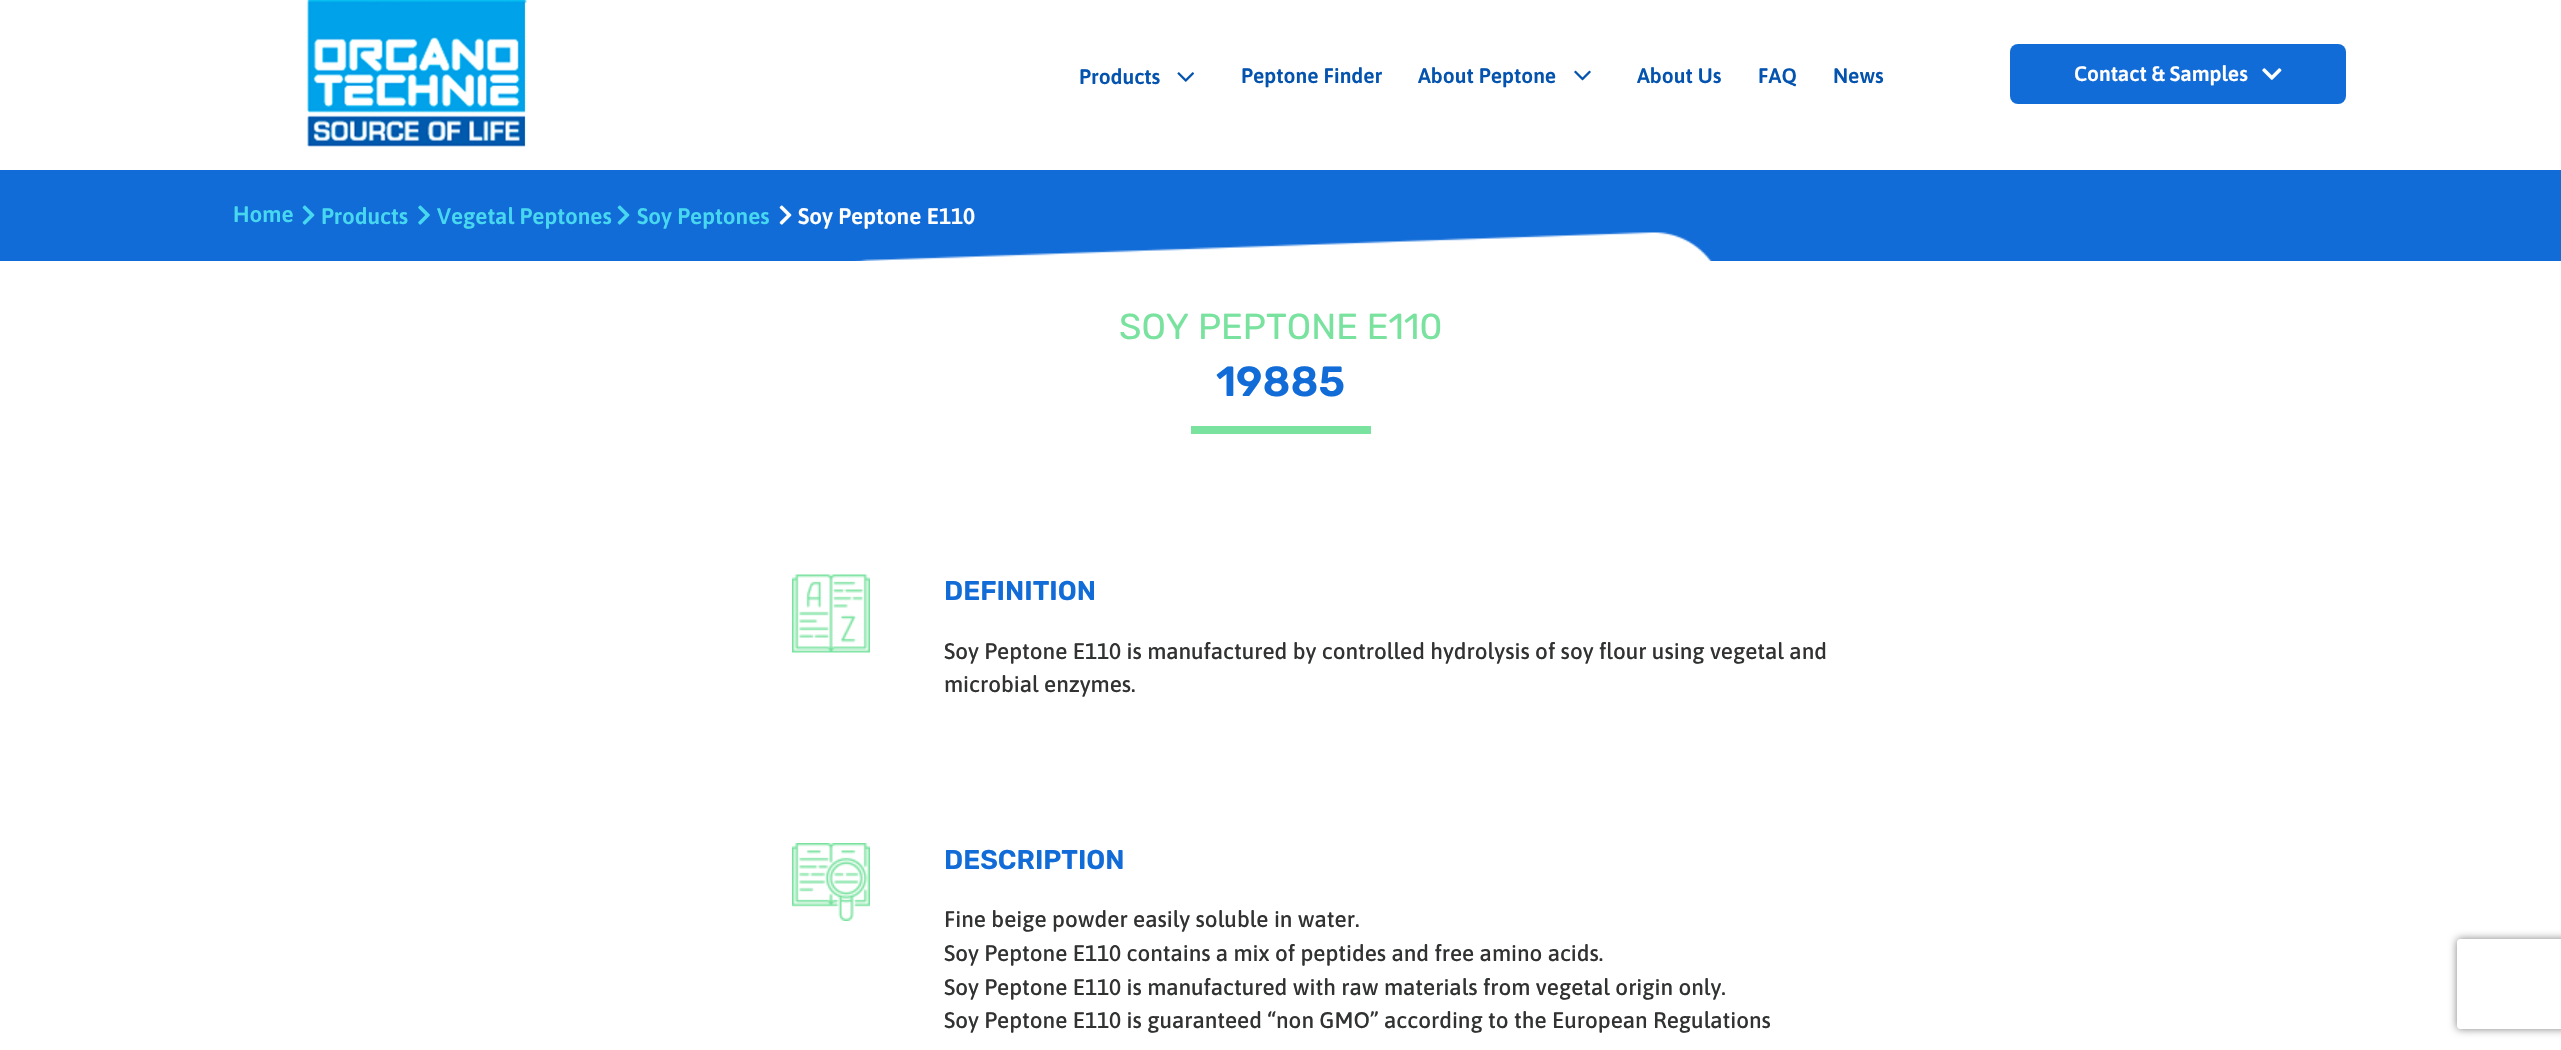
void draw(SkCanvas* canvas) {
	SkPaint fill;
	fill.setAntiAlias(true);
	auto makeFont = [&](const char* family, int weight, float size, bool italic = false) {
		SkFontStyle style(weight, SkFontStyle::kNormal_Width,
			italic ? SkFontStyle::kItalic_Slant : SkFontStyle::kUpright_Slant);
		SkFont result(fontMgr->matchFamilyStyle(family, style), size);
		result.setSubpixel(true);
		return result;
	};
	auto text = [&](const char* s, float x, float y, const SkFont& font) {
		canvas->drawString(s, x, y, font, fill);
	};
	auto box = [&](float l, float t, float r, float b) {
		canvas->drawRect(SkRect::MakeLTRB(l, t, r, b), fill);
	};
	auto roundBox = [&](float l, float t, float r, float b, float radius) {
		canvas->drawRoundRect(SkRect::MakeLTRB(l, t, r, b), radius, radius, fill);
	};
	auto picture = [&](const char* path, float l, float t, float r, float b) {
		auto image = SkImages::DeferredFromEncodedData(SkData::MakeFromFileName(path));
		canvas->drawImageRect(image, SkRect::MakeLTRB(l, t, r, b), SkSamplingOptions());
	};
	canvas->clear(0xFFFFFFFF);
	picture("image0.png", 307, 0, 528, 147);
	picture("image1.png", 1177, 72, 1194, 82);
	picture("image2.png", 1574, 70, 1591, 81);
	fill.setColor(0xFF126CD8);
	roundBox(2010, 44, 2346, 104, 8);
	picture("image3.png", 2262, 68, 2282, 80);
	box(0, 170, 2561, 261);
	picture("image4.png", 302, 205, 315, 225);
	picture("image5.png", 418, 205, 430, 225);
	picture("image4.png", 617, 205, 630, 225);
	picture("image6.png", 779, 205, 792, 225);
	picture("image7.png", 855, 232, 1712, 261);
	fill.setColor(0xFF78E29E);
	box(1191, 426, 1371, 434);
	picture("image8.png", 792, 574, 870, 653);
	picture("image9.png", 792, 843, 870, 921);
	canvas->save();
	canvas->clipPath(SkPathBuilder(SkPathFillType::kEvenOdd).moveTo(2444, 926).lineTo(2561, 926).lineTo(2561, 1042).lineTo(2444, 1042).close().moveTo(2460, 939).lineTo(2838, 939).cubicTo(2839.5f, 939, 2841, 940.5f, 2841, 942).lineTo(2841, 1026).cubicTo(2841, 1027.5f, 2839.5f, 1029, 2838, 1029).lineTo(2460, 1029).cubicTo(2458.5f, 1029, 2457, 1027.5f, 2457, 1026).lineTo(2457, 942).cubicTo(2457, 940.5f, 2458.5f, 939, 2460, 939).close().detach(), true);
	fill.setColor(0xFF808080);
	fill.setMaskFilter(SkMaskFilter::MakeBlur(kNormal_SkBlurStyle, 4));
	canvas->drawRoundRect(SkRect::MakeLTRB(2457, 939, 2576, 1029), 3, 3, fill);
	fill.setMaskFilter(nullptr);
	canvas->restore();
	auto font1 = makeFont("Asap", 600, 21);
	fill.setColor(0xFF0453AE);
	text("Products", 1079, 84, font1);
	text("Peptone Finder", 1241, 83, font1);
	text("About Peptone", 1418, 83, font1);
	text("About Us", 1637, 83, font1);
	text("FAQ", 1758, 83, font1);
	text("News", 1833, 83, font1);
	fill.setColor(0xFFFFFFFF);
	text("Contact & Samples", 2074, 81, font1);
	auto font2 = makeFont("Asap", 600, 22.5f);
	fill.setColor(0xFF47D8F0);
	text("Home", 233, 222, font2);
	text("Products", 321, 224, font2);
	text("Vegetal Peptones", 437, 224, font2);
	text("Soy Peptones", 637, 224, font2);
	fill.setColor(0xFFFFFFFF);
	text("Soy Peptone E110", 798, 224, font2);
	auto font3 = makeFont("Rubik", 400, 36);
	fill.setColor(0xFF78E29E);
	text("SOY PEPTONE E110", 1119, 339, font3);
	auto font4 = makeFont("Rubik", 600, 42);
	fill.setColor(0xFF126CD8);
	text("19885", 1216, 396, font4);
	auto font5 = makeFont("Rubik", 600, 27);
	text("DEFINITION", 944, 600, font5);
	auto font6 = makeFont("Asap", 500, 22.5f);
	fill.setColor(0xFF313232);
	text("Soy Peptone E110 is manufactured by controlled hydrolysis of soy flour using vegetal and", 944, 659, font6);
	text("microbial enzymes.", 944, 692, font6);
	fill.setColor(0xFF126CD8);
	text("DESCRIPTION", 944, 869, font5);
	fill.setColor(0xFF313232);
	text("Fine beige powder easily soluble in water.", 944, 927, font6);
	text("Soy Peptone E110 contains a mix of peptides and free amino acids.", 944, 961, font6);
	text("Soy Peptone E110 is manufactured with raw materials from vegetal origin only.", 944, 995, font6);
	text("Soy Peptone E110 is guaranteed “non GMO” according to the European Regulations", 944, 1028, font6);
}
